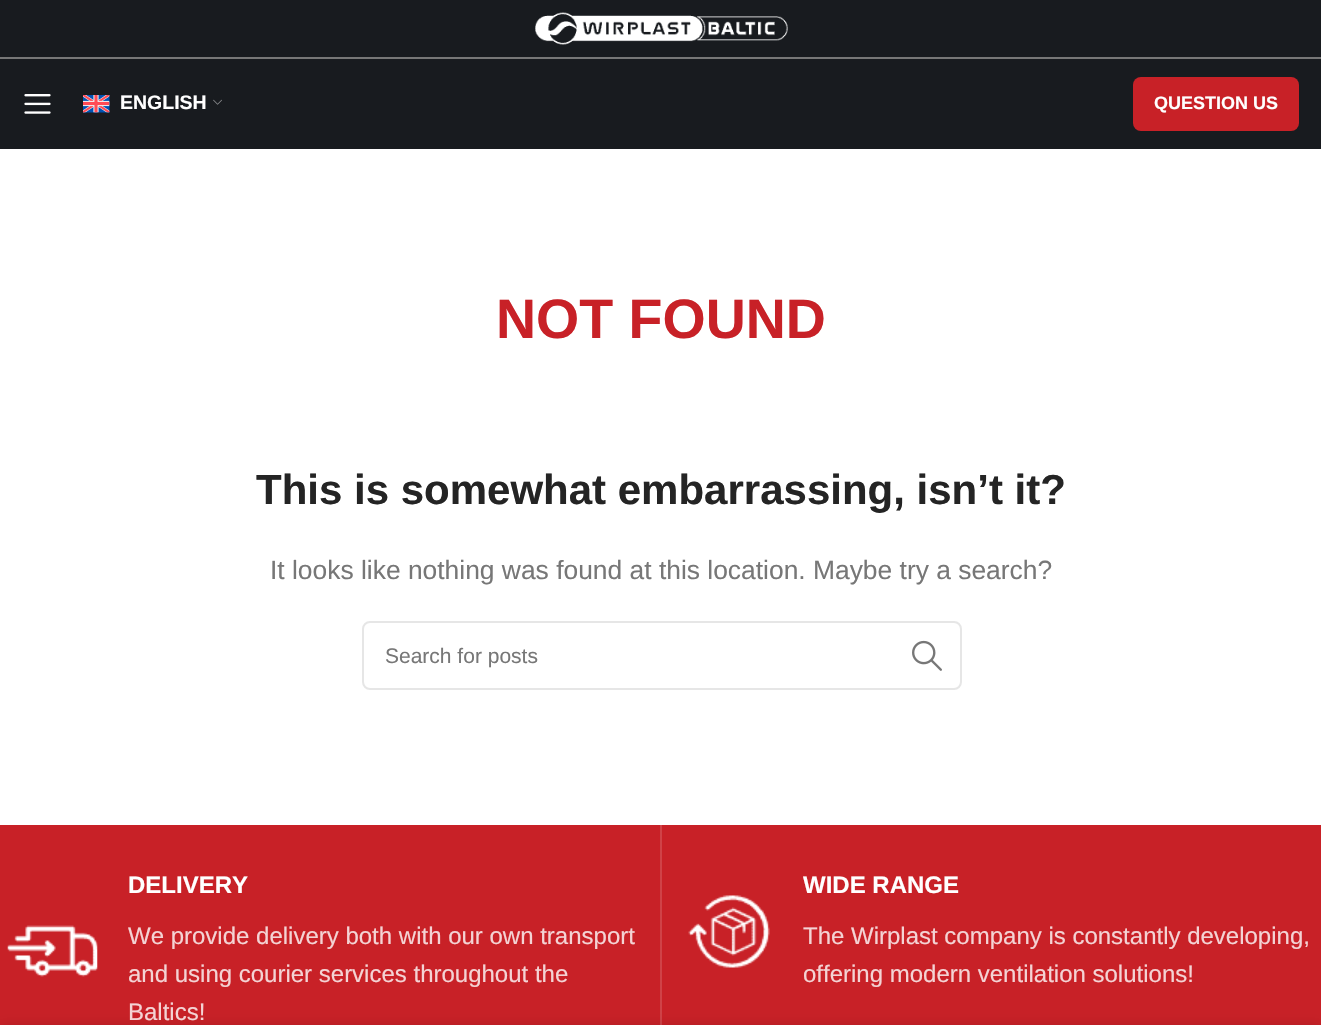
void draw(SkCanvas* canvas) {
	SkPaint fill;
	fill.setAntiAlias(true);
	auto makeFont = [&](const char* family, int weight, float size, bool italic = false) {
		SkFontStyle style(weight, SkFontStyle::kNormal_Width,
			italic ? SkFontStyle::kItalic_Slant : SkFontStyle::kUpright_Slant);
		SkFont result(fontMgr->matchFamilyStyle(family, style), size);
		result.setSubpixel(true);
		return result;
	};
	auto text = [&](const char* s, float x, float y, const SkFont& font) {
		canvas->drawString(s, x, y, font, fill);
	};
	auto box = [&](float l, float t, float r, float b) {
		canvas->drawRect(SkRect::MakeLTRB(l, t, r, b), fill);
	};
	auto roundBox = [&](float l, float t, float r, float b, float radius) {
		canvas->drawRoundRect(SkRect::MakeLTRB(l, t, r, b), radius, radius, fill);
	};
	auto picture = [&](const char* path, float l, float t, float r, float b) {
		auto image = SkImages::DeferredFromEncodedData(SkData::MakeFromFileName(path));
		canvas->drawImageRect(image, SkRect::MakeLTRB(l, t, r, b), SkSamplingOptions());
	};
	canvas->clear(0xFFFFFFFF);
	fill.setColor(0xFF181B1F);
	box(0, 0, 1321, 57);
	fill.setColor(0xFF777777);
	box(0, 57, 1321, 59);
	picture("image0.png", 535, 12, 788, 45);
	fill.setColor(0xFF181B1F);
	box(0, 59, 1321, 149);
	picture("image1.png", 24, 94, 51, 114);
	picture("image2.png", 83, 95, 110, 113);
	picture("image3.png", 213, 99, 222, 105);
	fill.setColor(0xFFC82127);
	roundBox(1133, 77, 1299, 131, 8);
	fill.setStyle(SkPaint::kStroke_Style);
	fill.setStrokeWidth(2);
	fill.setColor(0xFFE6E6E6);
	canvas->drawRoundRect(SkRect::MakeLTRB(363, 622, 961, 689), 7, 7, fill);
	picture("image4.png", 912, 640, 942, 671);
	fill.setStyle(SkPaint::kFill_Style);
	fill.setColor(0xFFC82127);
	box(0, 825, 1321, 1025);
	fill.setColor(0xFFD04247);
	box(660, 825, 662, 1025);
	picture("image5.png", 7, 925, 98, 977);
	picture("image6.png", 688, 895, 770, 968);
	fill.setColor(0x24000000);
	fill.setMaskFilter(SkMaskFilter::MakeBlur(kNormal_SkBlurStyle, 7));
	canvas->drawRect(SkRect::MakeLTRB(0, 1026, 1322, 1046), fill);
	fill.setMaskFilter(nullptr);
	auto font1 = makeFont("Liberation Sans", 700, 19.5f);
	fill.setColor(0xFFFFFFFF);
	text("ENGLISH", 120, 109, font1);
	auto font2 = makeFont("Liberation Sans", 700, 18);
	text("QUESTION US", 1154, 109, font2);
	auto font3 = makeFont("Liberation Sans", 700, 55.5f);
	fill.setColor(0xFFC82127);
	text("NOT FOUND", 496, 338, font3);
	auto font4 = makeFont("Liberation Sans", 700, 42);
	fill.setColor(0xFF242424);
	text("This is somewhat embarrassing, isn’t it?", 256, 504, font4);
	auto font5 = makeFont("Liberation Sans", 400, 26.4f);
	fill.setColor(0xFF777777);
	text("It looks like nothing was found at this location. Maybe try a search?", 270, 579, font5);
	auto font6 = makeFont("Liberation Sans", 400, 21);
	text("Search for posts", 385, 663, font6);
	auto font7 = makeFont("Liberation Sans", 700, 24);
	fill.setColor(0xFFFFFFFF);
	text("DELIVERY", 128, 893, font7);
	auto font8 = makeFont("Liberation Sans", 400, 24);
	fill.setColor(0xFFF4D3D4);
	text("We provide delivery both with our own transport", 128, 944, font8);
	text("and using courier services throughout the", 128, 982, font8);
	text("Baltics!", 128, 1020, font8);
	fill.setColor(0xFFFFFFFF);
	text("WIDE RANGE", 803, 893, font7);
	fill.setColor(0xFFF4D3D4);
	text("The Wirplast company is constantly developing,", 803, 944, font8);
	text("offering modern ventilation solutions!", 803, 982, font8);
}
